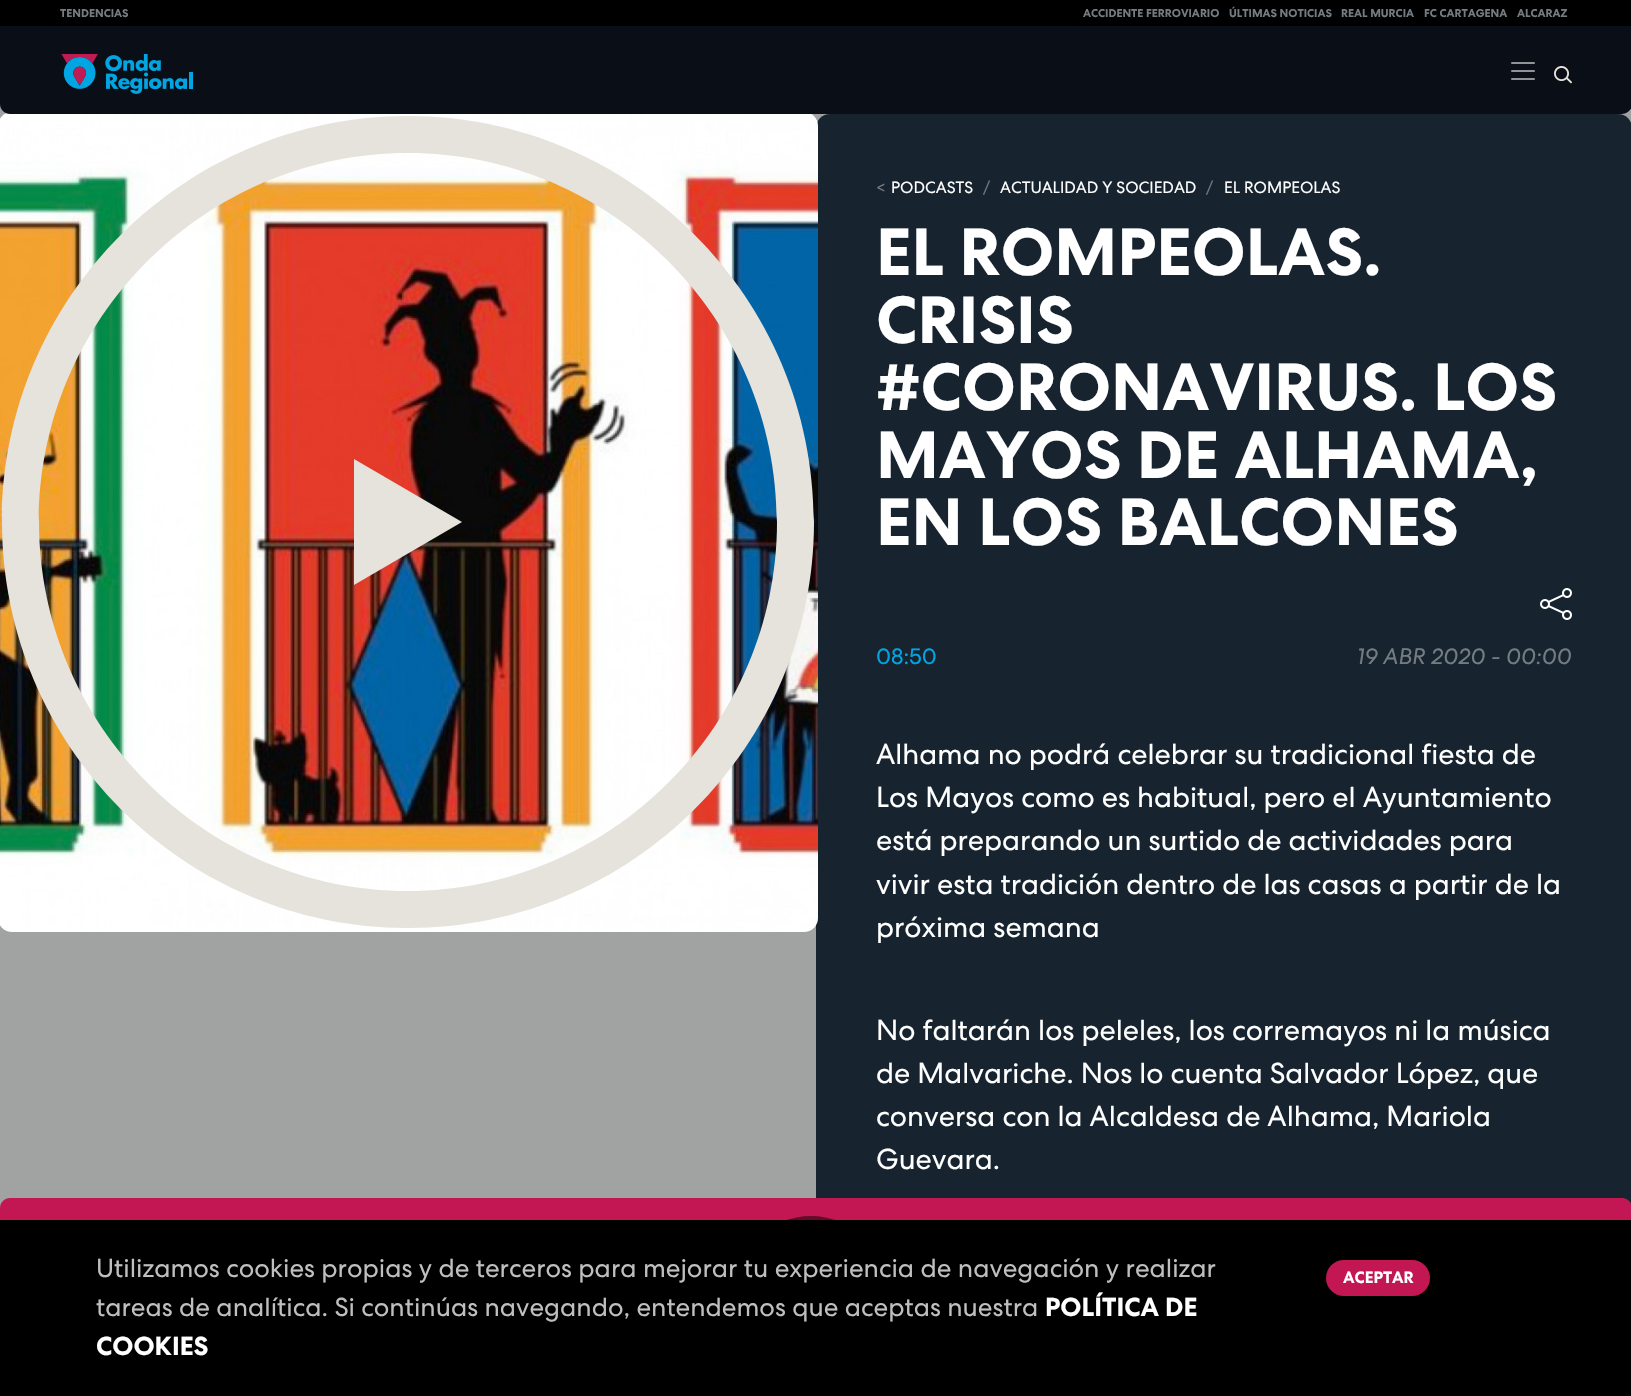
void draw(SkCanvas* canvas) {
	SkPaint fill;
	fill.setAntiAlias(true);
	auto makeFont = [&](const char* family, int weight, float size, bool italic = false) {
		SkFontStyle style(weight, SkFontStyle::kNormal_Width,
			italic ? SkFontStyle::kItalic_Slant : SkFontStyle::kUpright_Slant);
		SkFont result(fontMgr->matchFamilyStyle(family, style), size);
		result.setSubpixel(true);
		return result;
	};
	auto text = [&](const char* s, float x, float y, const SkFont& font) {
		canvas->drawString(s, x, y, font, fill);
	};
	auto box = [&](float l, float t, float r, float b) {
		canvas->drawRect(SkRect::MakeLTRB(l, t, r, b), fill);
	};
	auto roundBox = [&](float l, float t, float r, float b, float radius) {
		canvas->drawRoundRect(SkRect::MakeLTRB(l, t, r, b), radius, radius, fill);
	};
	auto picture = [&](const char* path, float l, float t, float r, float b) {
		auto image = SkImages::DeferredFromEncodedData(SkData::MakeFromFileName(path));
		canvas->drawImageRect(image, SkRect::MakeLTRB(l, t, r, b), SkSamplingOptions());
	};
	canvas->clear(0xFFA1A3A3);
	fill.setColor(0xFF000000);
	box(0, 0, 1631, 26);
	fill.setColor(0xFF17242F);
	roundBox(816, 114, 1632, 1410, 14);
	picture("image3.png", 0, 113, 818, 932);
	fill.setColor(0xFF0A0F17);
	canvas->drawPath(SkPathBuilder().moveTo(0, 26).lineTo(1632, 26).lineTo(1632, 104).cubicTo(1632, 109.5f, 1627.5f, 114, 1622, 114).lineTo(10, 114).cubicTo(4.5f, 114, 0, 109.5f, 0, 104).close().detach(), fill);
	picture("image0.png", 61, 54, 193, 94);
	picture("image1.png", 1511, 62, 1535, 80);
	picture("image2.png", 1554, 66, 1572, 84);
	fill.setColor(0xFFE6E2DC);
	canvas->drawPath(SkPathBuilder().moveTo(408, 928).cubicTo(184, 928, 2, 746, 2, 522).cubicTo(2, 298, 184, 116, 408, 116).cubicTo(632, 116, 814, 298, 814, 522).cubicTo(814, 746, 632, 928, 408, 928).close().moveTo(408, 153).cubicTo(205, 153, 39, 319, 39, 522).cubicTo(39, 725, 205, 891, 408, 891).cubicTo(611, 891, 777, 725, 777, 522).cubicTo(777, 319, 611, 153, 408, 153).close().detach(), fill);
	canvas->drawPath(SkPathBuilder().moveTo(354, 459).lineTo(462, 522).lineTo(354, 585).lineTo(354, 498).lineTo(354, 459).detach(), fill);
	picture("image4.png", 1540, 588, 1572, 620);
	fill.setColor(0xFFC21753);
	canvas->drawPath(SkPathBuilder().moveTo(10, 1198).lineTo(1622, 1198).cubicTo(1627.5f, 1198, 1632, 1202.5f, 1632, 1208).lineTo(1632, 1396).lineTo(0, 1396).lineTo(0, 1208).cubicTo(0, 1202.5f, 4.5f, 1198, 10, 1198).close().detach(), fill);
	fill.setColor(0xFF640B28);
	canvas->drawCircle(811, 1291, 75, fill);
	fill.setColor(0xFF000000);
	box(0, 1220, 1631, 1396);
	fill.setColor(0xFFC21753);
	roundBox(1326, 1260, 1430, 1296, 18);
	auto font1 = makeFont("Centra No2", 700, 11.25f);
	fill.setColor(0xFF747C82);
	text("TENDENCIAS", 60, 17, font1);
	text("ACCIDENTE FERROVIARIO", 1083, 17, font1);
	text("ÚLTIMAS NOTICIAS", 1229, 17, font1);
	text("REAL MURCIA", 1341, 17, font1);
	text("FC CARTAGENA", 1424, 17, font1);
	text("ALCARAZ", 1517, 17, font1);
	auto font2 = makeFont("Centra No2", 400, 16.25f);
	text("<", 876, 193, font2);
	fill.setColor(0xFFFFFFFF);
	text("PODCASTS", 891, 193, font2);
	fill.setColor(0xFF6C757D);
	text("/", 983, 193, font2);
	fill.setColor(0xFFFFFFFF);
	text("ACTUALIDAD Y SOCIEDAD", 1000, 193, font2);
	fill.setColor(0xFF6C757D);
	text("/", 1206, 193, font2);
	fill.setColor(0xFFFFFFFF);
	text("EL ROMPEOLAS", 1224, 193, font2);
	auto font3 = makeFont("Centra No2", 700, 66.25f);
	text("EL ROMPEOLAS.", 876, 275, font3);
	text("CRISIS", 876, 343, font3);
	text("#CORONAVIRUS. LOS", 876, 410, font3);
	text("MAYOS DE ALHAMA,", 876, 478, font3);
	text("EN LOS BALCONES", 876, 545, font3);
	auto font4 = makeFont("Centra No2", 400, 22.5f);
	fill.setColor(0xFF00A5E2);
	text("08:50", 876, 664, font4);
	auto font5 = makeFont("Centra No2", 400, 22.5f, true);
	fill.setColor(0xFF747C82);
	text("19 ABR 2020 - 00:00", 1357, 664, font5);
	auto font6 = makeFont("Centra No2", 400, 28.75f);
	fill.setColor(0xFFFFFFFF);
	text("Alhama no podrá celebrar su tradicional fiesta de", 876, 764, font6);
	text("Los Mayos como es habitual, pero el Ayuntamiento", 876, 807, font6);
	text("está preparando un surtido de actividades para", 876, 850, font6);
	text("vivir esta tradición dentro de las casas a partir de la", 876, 894, font6);
	text("próxima semana", 876, 937, font6);
	text("No faltarán los peleles, los corremayos ni la música", 876, 1040, font6);
	text("de Malvariche. Nos lo cuenta Salvador López, que", 876, 1083, font6);
	text("conversa con la Alcaldesa de Alhama, Mariola", 876, 1126, font6);
	text("Guevara.", 876, 1169, font6);
	auto font7 = makeFont("Centra No2", 400, 26);
	fill.setColor(0xFFBFBFBF);
	text("Utilizamos cookies propias y de terceros para mejorar tu experiencia de navegación y realizar", 96, 1277, font7);
	text("tareas de analítica. Si continúas navegando, entendemos que aceptas nuestra", 96, 1316, font7);
	auto font8 = makeFont("Centra No2", 700, 26);
	fill.setColor(0xFFFFFFFF);
	text("POLÍTICA DE", 1045, 1316, font8);
	text("COOKIES", 96, 1355, font8);
	auto font9 = makeFont("Centra No2", 700, 16.25f);
	text("ACEPTAR", 1343, 1283, font9);
}
